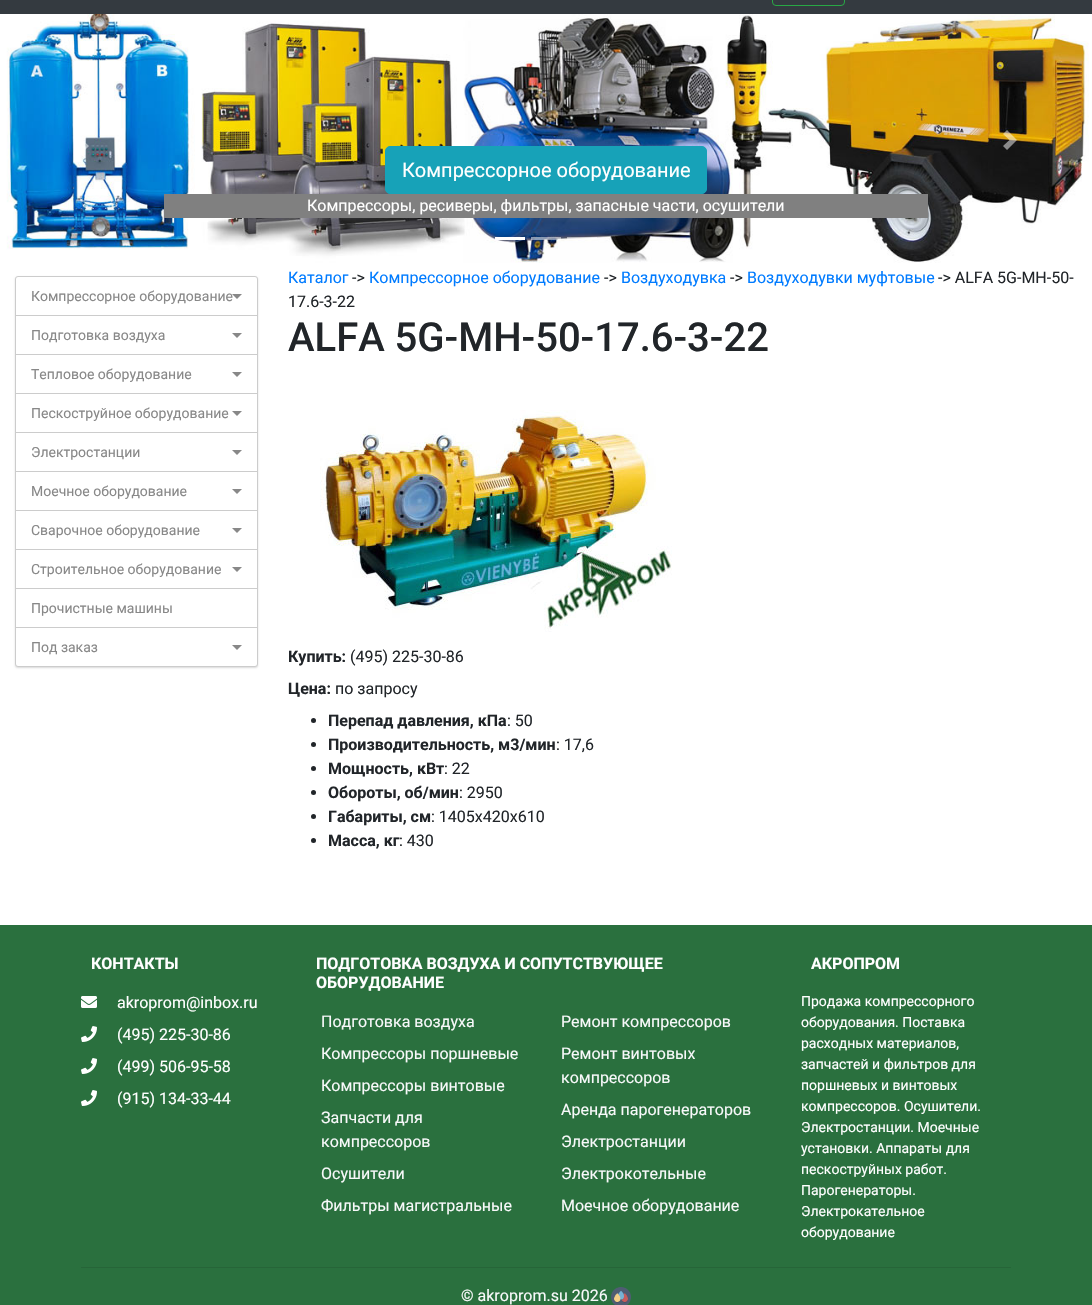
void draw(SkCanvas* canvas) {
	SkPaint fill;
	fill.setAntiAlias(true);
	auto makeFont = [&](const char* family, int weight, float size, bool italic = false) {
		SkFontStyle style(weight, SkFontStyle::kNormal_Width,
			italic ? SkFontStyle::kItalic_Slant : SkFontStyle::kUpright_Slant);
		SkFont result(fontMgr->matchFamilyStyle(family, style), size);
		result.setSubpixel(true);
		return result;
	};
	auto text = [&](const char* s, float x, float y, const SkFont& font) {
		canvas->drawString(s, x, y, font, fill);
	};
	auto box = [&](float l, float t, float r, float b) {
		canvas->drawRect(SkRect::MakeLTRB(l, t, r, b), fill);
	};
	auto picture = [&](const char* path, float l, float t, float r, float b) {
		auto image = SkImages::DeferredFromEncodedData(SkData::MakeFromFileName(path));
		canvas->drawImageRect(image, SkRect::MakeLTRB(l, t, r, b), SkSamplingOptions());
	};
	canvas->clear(0xFF2A703E);
	fill.setColor(0xFF343A40);
	box(0, 0, 1092, 14);
	fill.setStyle(SkPaint::kStroke_Style);
	fill.setStrokeWidth(1);
	fill.setColor(0xFF28A745);
	canvas->drawRoundRect(SkRect::MakeLTRB(772.5f, -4.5f, 844.5f, 5.5f), 3.5f, 3.5f, fill);
	picture("image0.png", 0, 14, 1092, 266);
	fill.setStyle(SkPaint::kFill_Style);
	fill.setColor(0x80FFFFFF);
	canvas->drawPath(SkPathBuilder().moveTo(85, 130).lineTo(75, 140).lineTo(85, 150).lineTo(89, 146).lineTo(82.5f, 140).lineTo(89, 134).close().detach(), fill);
	canvas->drawPath(SkPathBuilder().moveTo(1007, 130).lineTo(1003, 134).lineTo(1009.5f, 140).lineTo(1003, 146).lineTo(1007, 150).lineTo(1017, 140).close().detach(), fill);
	fill.setColor(0xFF17A2B8);
	canvas->drawRoundRect(SkRect::MakeLTRB(385.5f, 146.5f, 706.5f, 193.5f), 4.5f, 4.5f, fill);
	fill.setStyle(SkPaint::kStroke_Style);
	canvas->drawRoundRect(SkRect::MakeLTRB(385.5f, 146.5f, 706.5f, 193.5f), 4.5f, 4.5f, fill);
	fill.setStyle(SkPaint::kFill_Style);
	fill.setColor(0xFF808080);
	box(164, 194, 928, 218);
	fill.setColor(0xFFFFFFFF);
	box(495, 237, 525, 240);
	fill.setColor(0x80FFFFFF);
	box(531, 237, 561, 240);
	box(567, 237, 597, 240);
	fill.setColor(0xFFFFFFFF);
	box(0, 266, 1092, 925);
	fill.setColor(0x26000000);
	fill.setMaskFilter(SkMaskFilter::MakeBlur(kNormal_SkBlurStyle, 1));
	canvas->drawRoundRect(SkRect::MakeLTRB(15, 277, 258, 668), 3, 3, fill);
	fill.setMaskFilter(nullptr);
	fill.setColor(0xFFFFFFFF);
	canvas->drawRoundRect(SkRect::MakeLTRB(15.5f, 276.5f, 257.5f, 666.5f), 2.5f, 2.5f, fill);
	fill.setStyle(SkPaint::kStroke_Style);
	fill.setColor(0xFFCCCCCC);
	canvas->drawRoundRect(SkRect::MakeLTRB(15.5f, 276.5f, 257.5f, 666.5f), 2.5f, 2.5f, fill);
	fill.setStyle(SkPaint::kFill_Style);
	box(16, 315, 257, 316);
	fill.setColor(0xFF888888);
	canvas->drawPath(SkPathBuilder().moveTo(232, 294).lineTo(242, 294).lineTo(237, 299).close().detach(), fill);
	fill.setColor(0xFFCCCCCC);
	box(16, 354, 257, 355);
	fill.setColor(0xFF888888);
	canvas->drawPath(SkPathBuilder().moveTo(232, 333).lineTo(242, 333).lineTo(237, 338).close().detach(), fill);
	fill.setColor(0xFFCCCCCC);
	box(16, 393, 257, 394);
	fill.setColor(0xFF888888);
	canvas->drawPath(SkPathBuilder().moveTo(232, 372).lineTo(242, 372).lineTo(237, 377).close().detach(), fill);
	fill.setColor(0xFFCCCCCC);
	box(16, 432, 257, 433);
	fill.setColor(0xFF888888);
	canvas->drawPath(SkPathBuilder().moveTo(232, 411).lineTo(242, 411).lineTo(237, 416).close().detach(), fill);
	fill.setColor(0xFFCCCCCC);
	box(16, 471, 257, 472);
	fill.setColor(0xFF888888);
	canvas->drawPath(SkPathBuilder().moveTo(232, 450).lineTo(242, 450).lineTo(237, 455).close().detach(), fill);
	fill.setColor(0xFFCCCCCC);
	box(16, 510, 257, 511);
	fill.setColor(0xFF888888);
	canvas->drawPath(SkPathBuilder().moveTo(232, 489).lineTo(242, 489).lineTo(237, 494).close().detach(), fill);
	fill.setColor(0xFFCCCCCC);
	box(16, 549, 257, 550);
	fill.setColor(0xFF888888);
	canvas->drawPath(SkPathBuilder().moveTo(232, 528).lineTo(242, 528).lineTo(237, 533).close().detach(), fill);
	fill.setColor(0xFFCCCCCC);
	box(16, 588, 257, 589);
	fill.setColor(0xFF888888);
	canvas->drawPath(SkPathBuilder().moveTo(232, 567).lineTo(242, 567).lineTo(237, 572).close().detach(), fill);
	fill.setColor(0xFFCCCCCC);
	box(16, 627, 257, 628);
	fill.setColor(0xFF888888);
	canvas->drawPath(SkPathBuilder().moveTo(232, 645).lineTo(242, 645).lineTo(237, 650).close().detach(), fill);
	picture("image1.png", 320, 410, 672, 632);
	fill.setColor(0xFF212529);
	canvas->drawCircle(313.5f, 720.5f, 2.5f, fill);
	canvas->drawCircle(313.5f, 744.5f, 2.5f, fill);
	canvas->drawCircle(313.5f, 768.5f, 2.5f, fill);
	canvas->drawCircle(313.5f, 792.5f, 2.5f, fill);
	canvas->drawCircle(313.5f, 816.5f, 2.5f, fill);
	canvas->drawCircle(313.5f, 840.5f, 2.5f, fill);
	picture("image2.png", 81, 996, 97, 1008);
	picture("image3.png", 81, 1026, 97, 1042);
	picture("image3.png", 81, 1058, 97, 1074);
	picture("image3.png", 81, 1090, 97, 1106);
	fill.setColor(0xFF266538);
	box(81, 1267, 1011, 1268);
	picture("image4.png", 611, 1287, 631, 1305);
	auto font1 = makeFont("Roboto", 400, 20);
	fill.setColor(0xFFFFFFFF);
	text("Компрессорное оборудование", 402, 177, font1);
	auto font2 = makeFont("Roboto", 400, 16);
	text("Компрессоры, ресиверы, фильтры, запасные части, осушители", 307, 211, font2);
	auto font3 = makeFont("Roboto", 400, 14);
	fill.setColor(0xFF888888);
	text("Компрессорное оборудование", 31, 301, font3);
	text("Подготовка воздуха", 31, 340, font3);
	text("Тепловое оборудование", 31, 379, font3);
	text("Пескоструйное оборудование", 31, 418, font3);
	text("Электростанции", 31, 457, font3);
	text("Моечное оборудование", 31, 496, font3);
	text("Сварочное оборудование", 31, 535, font3);
	text("Строительное оборудование", 31, 574, font3);
	text("Прочистные машины", 31, 613, font3);
	text("Под заказ", 31, 652, font3);
	fill.setColor(0xFF007BFF);
	text("Каталог", 288, 283, font2);
	fill.setColor(0xFF212529);
	text("->", 352, 283, font2);
	fill.setColor(0xFF007BFF);
	text("Компрессорное оборудование", 369, 283, font2);
	fill.setColor(0xFF212529);
	text("->", 604, 283, font2);
	fill.setColor(0xFF007BFF);
	text("Воздуходувка", 621, 283, font2);
	fill.setColor(0xFF212529);
	text("->", 730, 283, font2);
	fill.setColor(0xFF007BFF);
	text("Воздуходувки муфтовые", 747, 283, font2);
	fill.setColor(0xFF212529);
	text("-> АLFA 5G-MH-50-", 938, 283, font2);
	text("17.6-3-22", 288, 307, font2);
	auto font4 = makeFont("Roboto", 500, 40);
	text("АLFA 5G-MH-50-17.6-3-22", 288, 351, font4);
	auto font5 = makeFont("Roboto", 700, 16);
	text("Купить:", 288, 662, font5);
	text("(495) 225-30-86", 350, 662, font2);
	text("Цена:", 288, 694, font5);
	text("по запросу", 335, 694, font2);
	text("Перепад давления, кПа", 328, 726, font5);
	text(": 50", 507, 726, font2);
	text("Производительность, м3/мин", 328, 750, font5);
	text(": 17,6", 556, 750, font2);
	text("Мощность, кВт", 328, 774, font5);
	text(": 22", 444, 774, font2);
	text("Обороты, об/мин", 328, 798, font5);
	text(": 2950", 459, 798, font2);
	text("Габариты, см", 328, 822, font5);
	text(": 1405х420х610", 431, 822, font2);
	text("Масса, кг", 328, 846, font5);
	text(": 430", 399, 846, font2);
	fill.setColor(0xFFFFFFFF);
	text("КОНТАКТЫ", 91, 969, font5);
	text("akroprom@inbox.ru", 117, 1008, font2);
	text("(495) 225-30-86", 117, 1040, font2);
	text("(499) 506-95-58", 117, 1072, font2);
	text("(915) 134-33-44", 117, 1104, font2);
	text("ПОДГОТОВКА ВОЗДУХА И СОПУТСТВУЮЩЕЕ", 316, 969, font5);
	text("ОБОРУДОВАНИЕ", 316, 988, font5);
	fill.setColor(0xFFF8F9FA);
	text("Подготовка воздуха", 321, 1027, font2);
	text("Компрессоры поршневые", 321, 1059, font2);
	text("Компрессоры винтовые", 321, 1091, font2);
	text("Запчасти для", 321, 1123, font2);
	text("компрессоров", 321, 1147, font2);
	text("Осушители", 321, 1179, font2);
	text("Фильтры магистральные", 321, 1211, font2);
	text("Ремонт компрессоров", 561, 1027, font2);
	text("Ремонт винтовых", 561, 1059, font2);
	text("компрессоров", 561, 1083, font2);
	text("Аренда парогенераторов", 561, 1115, font2);
	text("Электростанции", 561, 1147, font2);
	text("Электрокотельные", 561, 1179, font2);
	text("Моечное оборудование", 561, 1211, font2);
	fill.setColor(0xFFFFFFFF);
	text("АКРОПРОМ", 811, 969, font5);
	text("Продажа компрессорного", 801, 1006, font3);
	text("оборудования. Поставка", 801, 1027, font3);
	text("расходных материалов,", 801, 1048, font3);
	text("запчастей и фильтров для", 801, 1069, font3);
	text("поршневых и винтовых", 801, 1090, font3);
	text("компрессоров. Осушители.", 801, 1111, font3);
	text("Электростанции. Моeчные", 801, 1132, font3);
	text("установки. Аппараты для", 801, 1153, font3);
	text("пескоструйных работ.", 801, 1174, font3);
	text("Парогенераторы.", 801, 1195, font3);
	text("Электрокательное", 801, 1216, font3);
	text("оборудование", 801, 1237, font3);
	fill.setColor(0xFFF8F9FA);
	text("© akroprom.su 2026", 461, 1301, font2);
}
